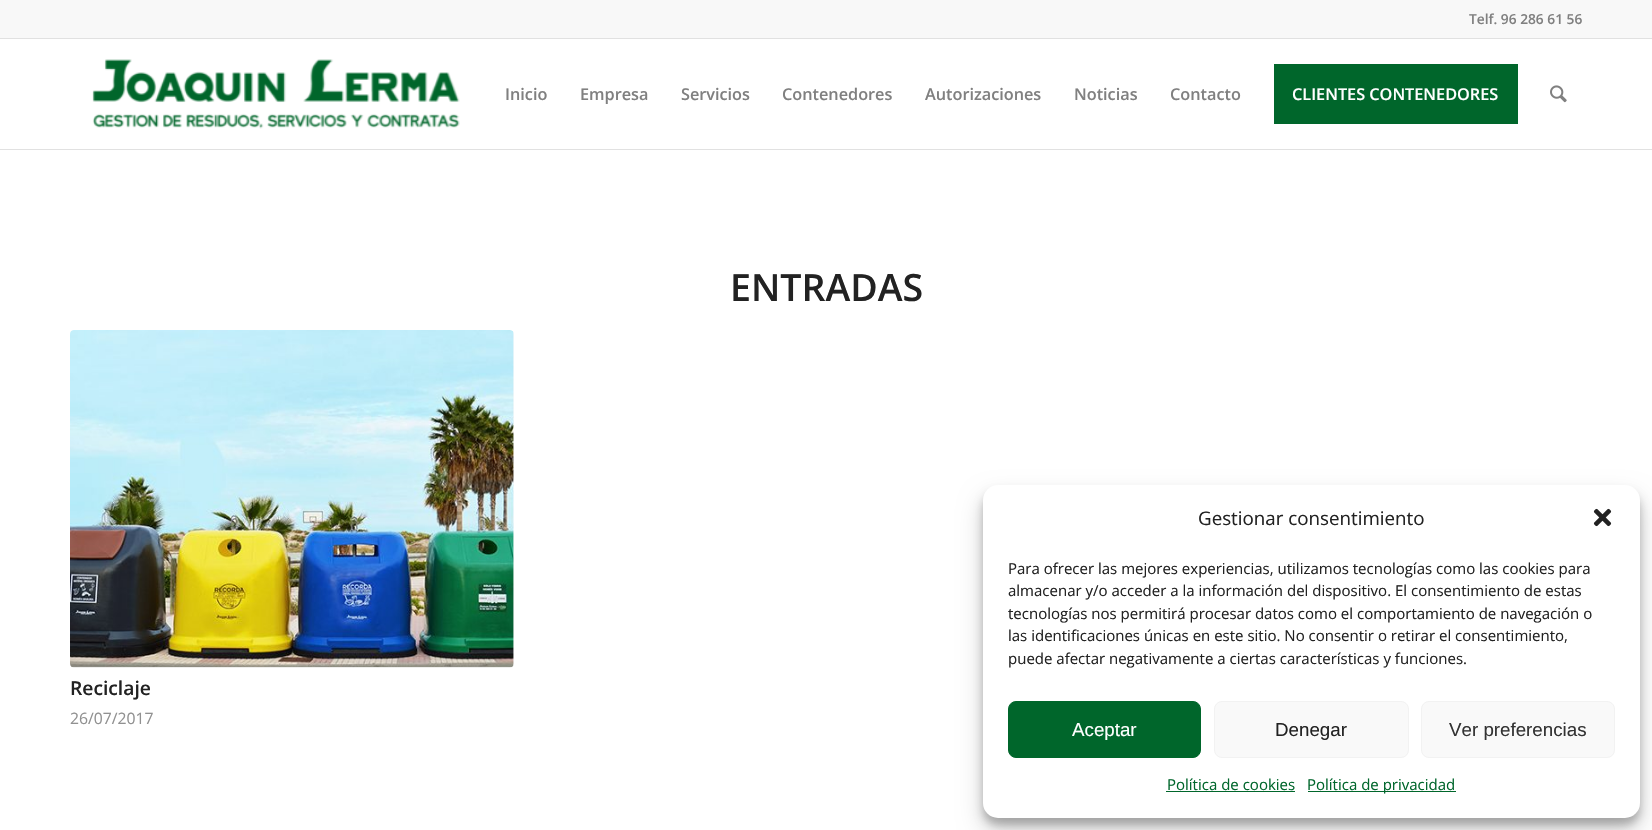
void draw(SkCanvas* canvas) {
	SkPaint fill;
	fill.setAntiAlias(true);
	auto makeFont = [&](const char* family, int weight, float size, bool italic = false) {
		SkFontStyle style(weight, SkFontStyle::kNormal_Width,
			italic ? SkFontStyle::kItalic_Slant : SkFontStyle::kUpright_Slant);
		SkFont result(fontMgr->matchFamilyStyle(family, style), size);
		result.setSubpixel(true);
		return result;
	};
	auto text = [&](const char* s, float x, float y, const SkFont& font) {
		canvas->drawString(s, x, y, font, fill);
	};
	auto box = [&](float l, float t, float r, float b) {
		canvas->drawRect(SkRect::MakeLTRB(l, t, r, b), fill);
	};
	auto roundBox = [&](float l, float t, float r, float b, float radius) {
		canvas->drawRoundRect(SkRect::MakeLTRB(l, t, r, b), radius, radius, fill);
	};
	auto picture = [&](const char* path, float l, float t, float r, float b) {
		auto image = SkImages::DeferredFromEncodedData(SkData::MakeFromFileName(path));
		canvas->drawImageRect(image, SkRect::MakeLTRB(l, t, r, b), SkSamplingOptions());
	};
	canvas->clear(0xFFFFFFFF);
	fill.setColor(0xFFF8F8F8);
	box(0, 0, 1652, 38);
	fill.setColor(0xFFE1E1E1);
	box(0, 38, 1652, 39);
	box(0, 149, 1652, 150);
	picture("image0.png", 92, 59, 460, 129);
	fill.setColor(0xFF00662B);
	box(1274, 64, 1518, 124);
	picture("image1.png", 1550, 85, 1567, 103);
	fill.setColor(0xFFFCFCFC);
	roundBox(70, 330, 514, 668, 4);
	picture("image2.png", 70, 330, 514, 668);
	fill.setColor(0x3B000000);
	fill.setMaskFilter(SkMaskFilter::MakeBlur(kNormal_SkBlurStyle, 4));
	canvas->drawRoundRect(SkRect::MakeLTRB(983, 493, 1640, 825), 15, 15, fill);
	fill.setMaskFilter(nullptr);
	fill.setColor(0x30000000);
	fill.setMaskFilter(SkMaskFilter::MakeBlur(kNormal_SkBlurStyle, 12.5f));
	canvas->drawRoundRect(SkRect::MakeLTRB(983, 498, 1640, 830), 15, 15, fill);
	fill.setMaskFilter(nullptr);
	fill.setColor(0xFFFFFFFF);
	roundBox(983, 485, 1640, 818, 15);
	picture("image3.png", 1593, 508, 1612, 527);
	fill.setColor(0xFF00662B);
	canvas->drawRoundRect(SkRect::MakeLTRB(1008.5f, 701.5f, 1200.5f, 757.5f), 7.5f, 7.5f, fill);
	fill.setStyle(SkPaint::kStroke_Style);
	fill.setStrokeWidth(1);
	canvas->drawRoundRect(SkRect::MakeLTRB(1008.5f, 701.5f, 1200.5f, 757.5f), 7.5f, 7.5f, fill);
	fill.setStyle(SkPaint::kFill_Style);
	fill.setColor(0xFFF9F9F9);
	canvas->drawRoundRect(SkRect::MakeLTRB(1214.5f, 701.5f, 1408.5f, 757.5f), 7.5f, 7.5f, fill);
	fill.setStyle(SkPaint::kStroke_Style);
	fill.setColor(0xFFF2F2F2);
	canvas->drawRoundRect(SkRect::MakeLTRB(1214.5f, 701.5f, 1408.5f, 757.5f), 7.5f, 7.5f, fill);
	fill.setStyle(SkPaint::kFill_Style);
	fill.setColor(0xFFF9F9F9);
	canvas->drawRoundRect(SkRect::MakeLTRB(1421.5f, 701.5f, 1614.5f, 757.5f), 7.5f, 7.5f, fill);
	fill.setStyle(SkPaint::kStroke_Style);
	fill.setColor(0xFFF2F2F2);
	canvas->drawRoundRect(SkRect::MakeLTRB(1421.5f, 701.5f, 1614.5f, 757.5f), 7.5f, 7.5f, fill);
	fill.setStyle(SkPaint::kFill_Style);
	fill.setColor(0xFF00662B);
	box(1166, 791, 1295, 792);
	box(1308, 791, 1456, 792);
	auto font1 = makeFont("Open Sans", 600, 13.75f);
	fill.setColor(0xFF808080);
	text("Telf. 96 286 61 56", 1469, 24, font1);
	auto font2 = makeFont("Open Sans", 600, 16.25f);
	text("Inicio", 505, 100, font2);
	text("Empresa", 580, 100, font2);
	text("Servicios", 681, 100, font2);
	text("Contenedores", 782, 100, font2);
	text("Autorizaciones", 925, 100, font2);
	text("Noticias", 1074, 100, font2);
	text("Contacto", 1170, 100, font2);
	fill.setColor(0xFFFFFFFF);
	text("CLIENTES CONTENEDORES", 1292, 100, font2);
	auto font3 = makeFont("Open Sans", 600, 37.5f);
	fill.setColor(0xFF222222);
	text("ENTRADAS", 730, 301, font3);
	auto font4 = makeFont("Open Sans", 600, 19.25f);
	text("Reciclaje", 70, 695, font4);
	auto font5 = makeFont("Open Sans", 400, 15.75f);
	fill.setColor(0xFF919191);
	text("26/07/2017", 70, 724, font5);
	auto font6 = makeFont("Open Sans", 400, 18.75f);
	fill.setColor(0xFF222222);
	text("Gestionar consentimiento", 1198, 525, font6);
	auto font7 = makeFont("Open Sans", 400, 15);
	text("Para ofrecer las mejores experiencias, utilizamos tecnologías como las cookies para", 1008, 574, font7);
	text("almacenar y/o acceder a la información del dispositivo. El consentimiento de estas", 1008, 596, font7);
	text("tecnologías nos permitirá procesar datos como el comportamiento de navegación o", 1008, 619, font7);
	text("las identificaciones únicas en este sitio. No consentir o retirar el consentimiento,", 1008, 641, font7);
	text("puede afectar negativamente a ciertas características y funciones.", 1008, 664, font7);
	auto font8 = makeFont("Liberation Sans", 400, 18.75f);
	fill.setColor(0xFFFFFFFF);
	text("Aceptar", 1072, 736, font8);
	fill.setColor(0xFF222222);
	text("Denegar", 1275, 736, font8);
	fill.setColor(0xFF333333);
	text("Ver preferencias", 1449, 736, font8);
	fill.setColor(0xFF00662B);
	text("Política de cookies", 1167, 790, font7);
	text("Política de privacidad", 1307, 790, font7);
}
